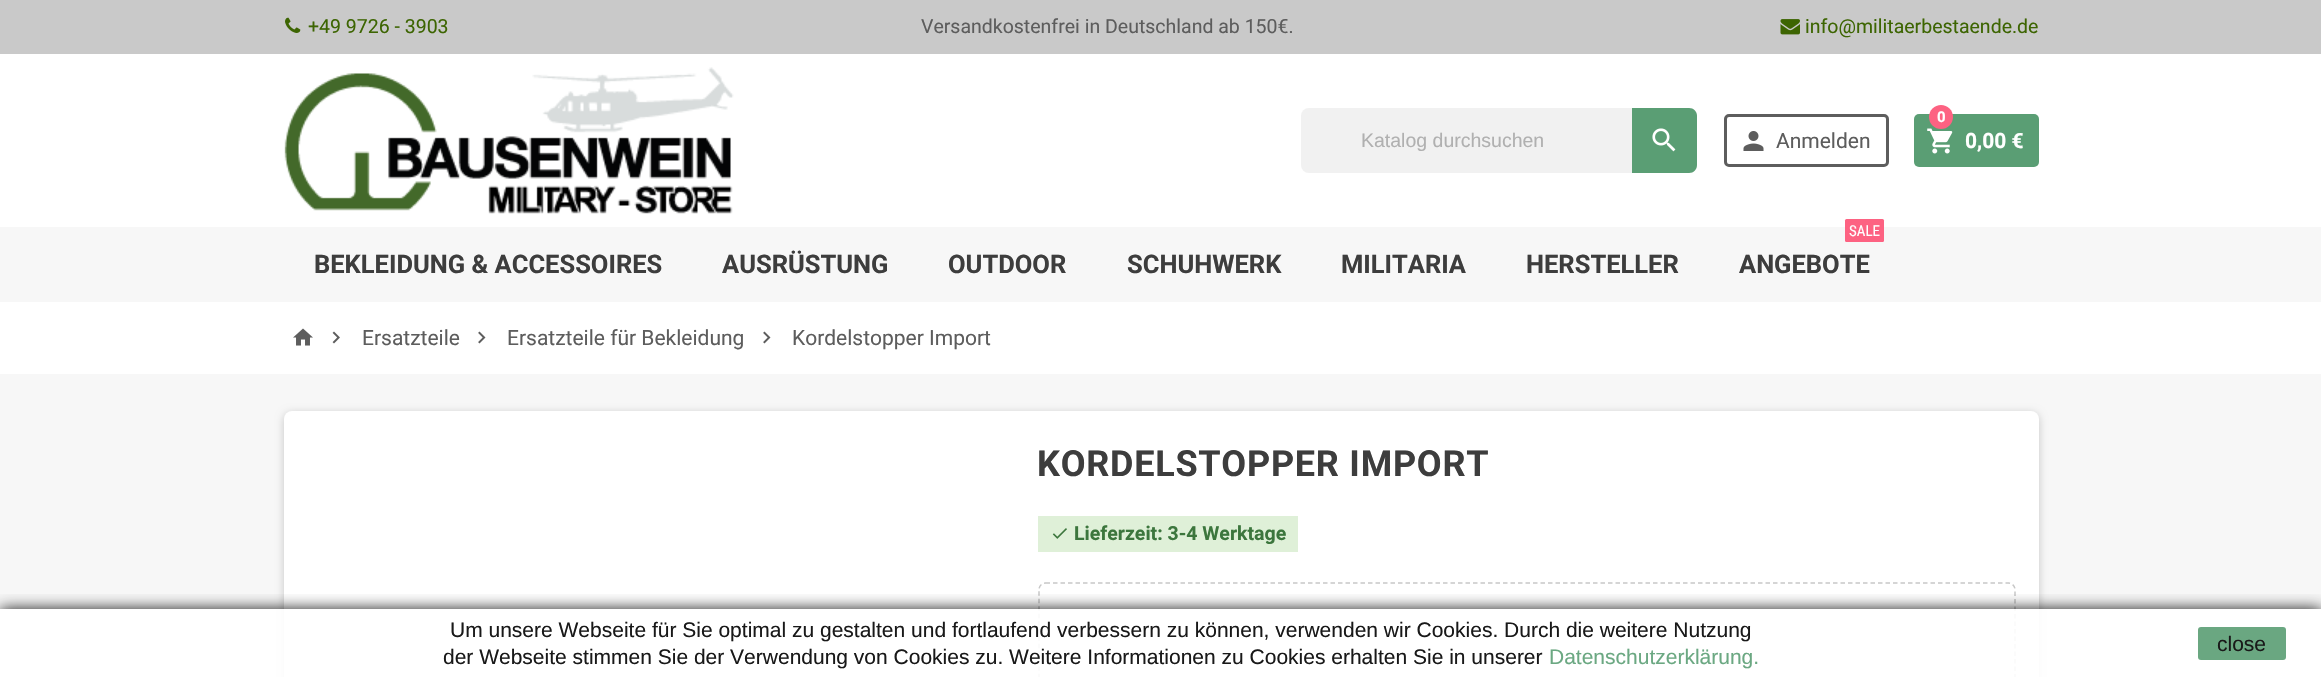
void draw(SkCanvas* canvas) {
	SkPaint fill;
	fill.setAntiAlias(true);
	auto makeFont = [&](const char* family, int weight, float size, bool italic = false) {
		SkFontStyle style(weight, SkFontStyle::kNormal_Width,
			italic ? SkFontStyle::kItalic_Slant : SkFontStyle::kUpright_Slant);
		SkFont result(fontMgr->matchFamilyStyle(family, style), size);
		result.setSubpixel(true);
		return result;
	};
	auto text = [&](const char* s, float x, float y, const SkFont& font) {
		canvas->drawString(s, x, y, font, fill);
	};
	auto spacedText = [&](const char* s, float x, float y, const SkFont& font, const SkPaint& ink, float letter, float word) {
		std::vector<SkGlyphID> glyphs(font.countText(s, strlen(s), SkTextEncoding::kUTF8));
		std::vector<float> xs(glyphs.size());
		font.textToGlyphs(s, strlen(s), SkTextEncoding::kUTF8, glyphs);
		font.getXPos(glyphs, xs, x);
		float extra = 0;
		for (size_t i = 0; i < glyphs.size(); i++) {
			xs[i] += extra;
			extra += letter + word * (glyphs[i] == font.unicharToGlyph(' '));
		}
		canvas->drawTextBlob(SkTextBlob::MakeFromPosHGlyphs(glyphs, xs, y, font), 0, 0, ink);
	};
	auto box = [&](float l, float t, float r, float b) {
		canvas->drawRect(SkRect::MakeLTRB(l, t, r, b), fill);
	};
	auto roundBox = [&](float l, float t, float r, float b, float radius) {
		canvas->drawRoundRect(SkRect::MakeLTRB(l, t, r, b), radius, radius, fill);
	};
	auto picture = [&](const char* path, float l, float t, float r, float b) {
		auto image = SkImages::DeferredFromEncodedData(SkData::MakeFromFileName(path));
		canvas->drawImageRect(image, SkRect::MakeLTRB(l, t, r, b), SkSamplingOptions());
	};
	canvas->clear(0xFFFFFFFF);
	fill.setColor(0xFFC9C9C9);
	box(0, 0, 2321, 54);
	picture("image0.png", 285, 17, 301, 33);
	picture("image1.png", 1780, 19, 1800, 35);
	picture("image2.png", 284, 67, 734, 214);
	fill.setColor(0xFFF1F1F1);
	roundBox(1301, 108, 1697, 173, 8);
	fill.setColor(0xFF5A9E74);
	canvas->drawPath(SkPathBuilder().moveTo(1632, 108).lineTo(1689, 108).cubicTo(1693.5f, 108, 1697, 111.5f, 1697, 116).lineTo(1697, 165).cubicTo(1697, 169.5f, 1693.5f, 173, 1689, 173).lineTo(1632, 173).close().detach(), fill);
	picture("image3.png", 1652, 128, 1676, 152);
	fill.setStyle(SkPaint::kStroke_Style);
	fill.setStrokeWidth(3);
	fill.setColor(0xFF5D5D5D);
	canvas->drawRoundRect(SkRect::MakeLTRB(1725.5f, 115.5f, 1887.5f, 165.5f), 3.5f, 3.5f, fill);
	picture("image4.png", 1743, 131, 1764, 151);
	fill.setStyle(SkPaint::kFill_Style);
	fill.setColor(0xFF5A9E74);
	roundBox(1914, 114, 2039, 167, 5);
	picture("image5.png", 1927, 128, 1953, 154);
	fill.setColor(0xFFFD6282);
	canvas->drawCircle(1941, 117, 12, fill);
	fill.setColor(0xFFF7F7F7);
	box(0, 227, 2321, 302);
	fill.setColor(0xFFFD6282);
	roundBox(1845, 219, 1884, 242, 1.5f);
	picture("image6.png", 293, 328, 313, 346);
	picture("image7.png", 332, 331, 340, 344);
	picture("image8.png", 478, 331, 486, 344);
	picture("image8.png", 763, 331, 771, 344);
	fill.setColor(0xFFF7F7F7);
	box(0, 374, 2321, 677);
	fill.setColor(0x33000000);
	fill.setMaskFilter(SkMaskFilter::MakeBlur(kNormal_SkBlurStyle, 4));
	canvas->drawRoundRect(SkRect::MakeLTRB(284, 413, 2039, 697), 8, 8, fill);
	fill.setMaskFilter(nullptr);
	fill.setColor(0xFFFFFFFF);
	roundBox(284, 411, 2039, 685, 8);
	fill.setColor(0xFFDFF0D8);
	box(1038, 516, 1298, 552);
	picture("image9.png", 1052, 528, 1067, 539);
	fill.setStyle(SkPaint::kStroke_Style);
	fill.setStrokeWidth(1.5f);
	fill.setColor(0xFFC7C7C7);
	fill.setPathEffect(SkDashPathEffect::Make({{4.5f, 3}}, 0));
	canvas->drawPath(SkPathBuilder().moveTo(1045.5f, 583).lineTo(2008.5f, 583).cubicTo(2012, 583, 2015, 586, 2015, 589.5f).lineTo(2015, 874.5f).cubicTo(2015, 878, 2012, 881, 2008.5f, 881).lineTo(1045.5f, 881).cubicTo(1042, 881, 1039, 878, 1039, 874.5f).lineTo(1039, 589.5f).cubicTo(1039, 586, 1042, 583, 1045.5f, 583).close().detach(), fill);
	fill.setPathEffect(nullptr);
	canvas->save();
	canvas->clipRect(SkRect::MakeLTRB(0, 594, 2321, 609));
	fill.setStyle(SkPaint::kFill_Style);
	fill.setColor(0xE6000000);
	fill.setMaskFilter(SkMaskFilter::MakeBlur(kNormal_SkBlurStyle, 7.5f));
	canvas->drawRect(SkRect::MakeLTRB(0, 609, 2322, 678), fill);
	fill.setMaskFilter(nullptr);
	canvas->restore();
	fill.setColor(0xE6FFFFFF);
	box(0, 609, 2321, 677);
	fill.setColor(0xFF6AA781);
	roundBox(2198, 627, 2286, 660, 3);
	auto font1 = makeFont("Roboto", 400, 19.5f);
	fill.setColor(0xFF3D6502);
	text("+49 9726 - 3903", 308, 33, font1);
	fill.setColor(0xFF5D5D5D);
	text("Versandkostenfrei in Deutschland ab 150€.", 921, 33, font1);
	fill.setColor(0xFF3D6502);
	text("info@militaerbestaende.de", 1805, 33, font1);
	auto font2 = makeFont("Liberation Sans", 400, 19.5f);
	fill.setColor(0xFFB0B0B0);
	text("Katalog durchsuchen", 1361, 147, font2);
	auto font3 = makeFont("Roboto", 400, 21);
	fill.setColor(0xFF5D5D5D);
	text("Anmelden", 1776, 148, font3);
	auto font4 = makeFont("Roboto", 700, 15);
	fill.setColor(0xFFFFFFFF);
	text("0", 1937, 122, font4);
	auto font5 = makeFont("Roboto", 700, 21);
	text("0,00 €", 1965, 148, font5);
	auto font6 = makeFont("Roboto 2", 700, 25.5f);
	fill.setColor(0xFF3D3D3D);
	text("BEKLEIDUNG & ACCESSOIRES", 314, 273, font6);
	text("AUSRÜSTUNG", 722, 273, font6);
	text("OUTDOOR", 948, 273, font6);
	text("SCHUHWERK", 1127, 273, font6);
	text("MILITARIA", 1341, 273, font6);
	text("HERSTELLER", 1526, 273, font6);
	auto font7 = makeFont("Roboto Condensed", 400, 15);
	fill.setColor(0xFFFFFFFF);
	text("SALE", 1849, 236, font7);
	fill.setColor(0xFF3D3D3D);
	text("ANGEBOTE", 1739, 273, font6);
	fill.setColor(0xFF5D5D5D);
	text("Ersatzteile", 362, 345, font3);
	text("Ersatzteile für Bekleidung", 507, 345, font3);
	text("Kordelstopper Import", 792, 345, font3);
	auto font8 = makeFont("Roboto 2", 700, 36);
	fill.setColor(0xFF3D3D3D);
	spacedText("KORDELSTOPPER IMPORT", 1037, 476, font8, fill, 0.75f, 0);
	auto font9 = makeFont("Roboto", 700, 19.5f);
	fill.setColor(0xFF3C763D);
	text("Lieferzeit: 3-4 Werktage", 1074, 540, font9);
	auto font10 = makeFont("Liberation Sans", 400, 21);
	fill.setColor(0xFF191919);
	text("Um unsere Webseite für Sie optimal zu gestalten und fortlaufend verbessern zu können, verwenden wir Cookies. Durch die weitere Nutzung", 450, 637, font10);
	text("der Webseite stimmen Sie der Verwendung von Cookies zu. Weitere Informationen zu Cookies erhalten Sie in unserer", 443, 664, font10);
	fill.setColor(0xFF6BA882);
	text("Datenschutzerklärung.", 1549, 664, font10);
	fill.setColor(0xFF191919);
	text("close", 2217, 651, font10);
}
